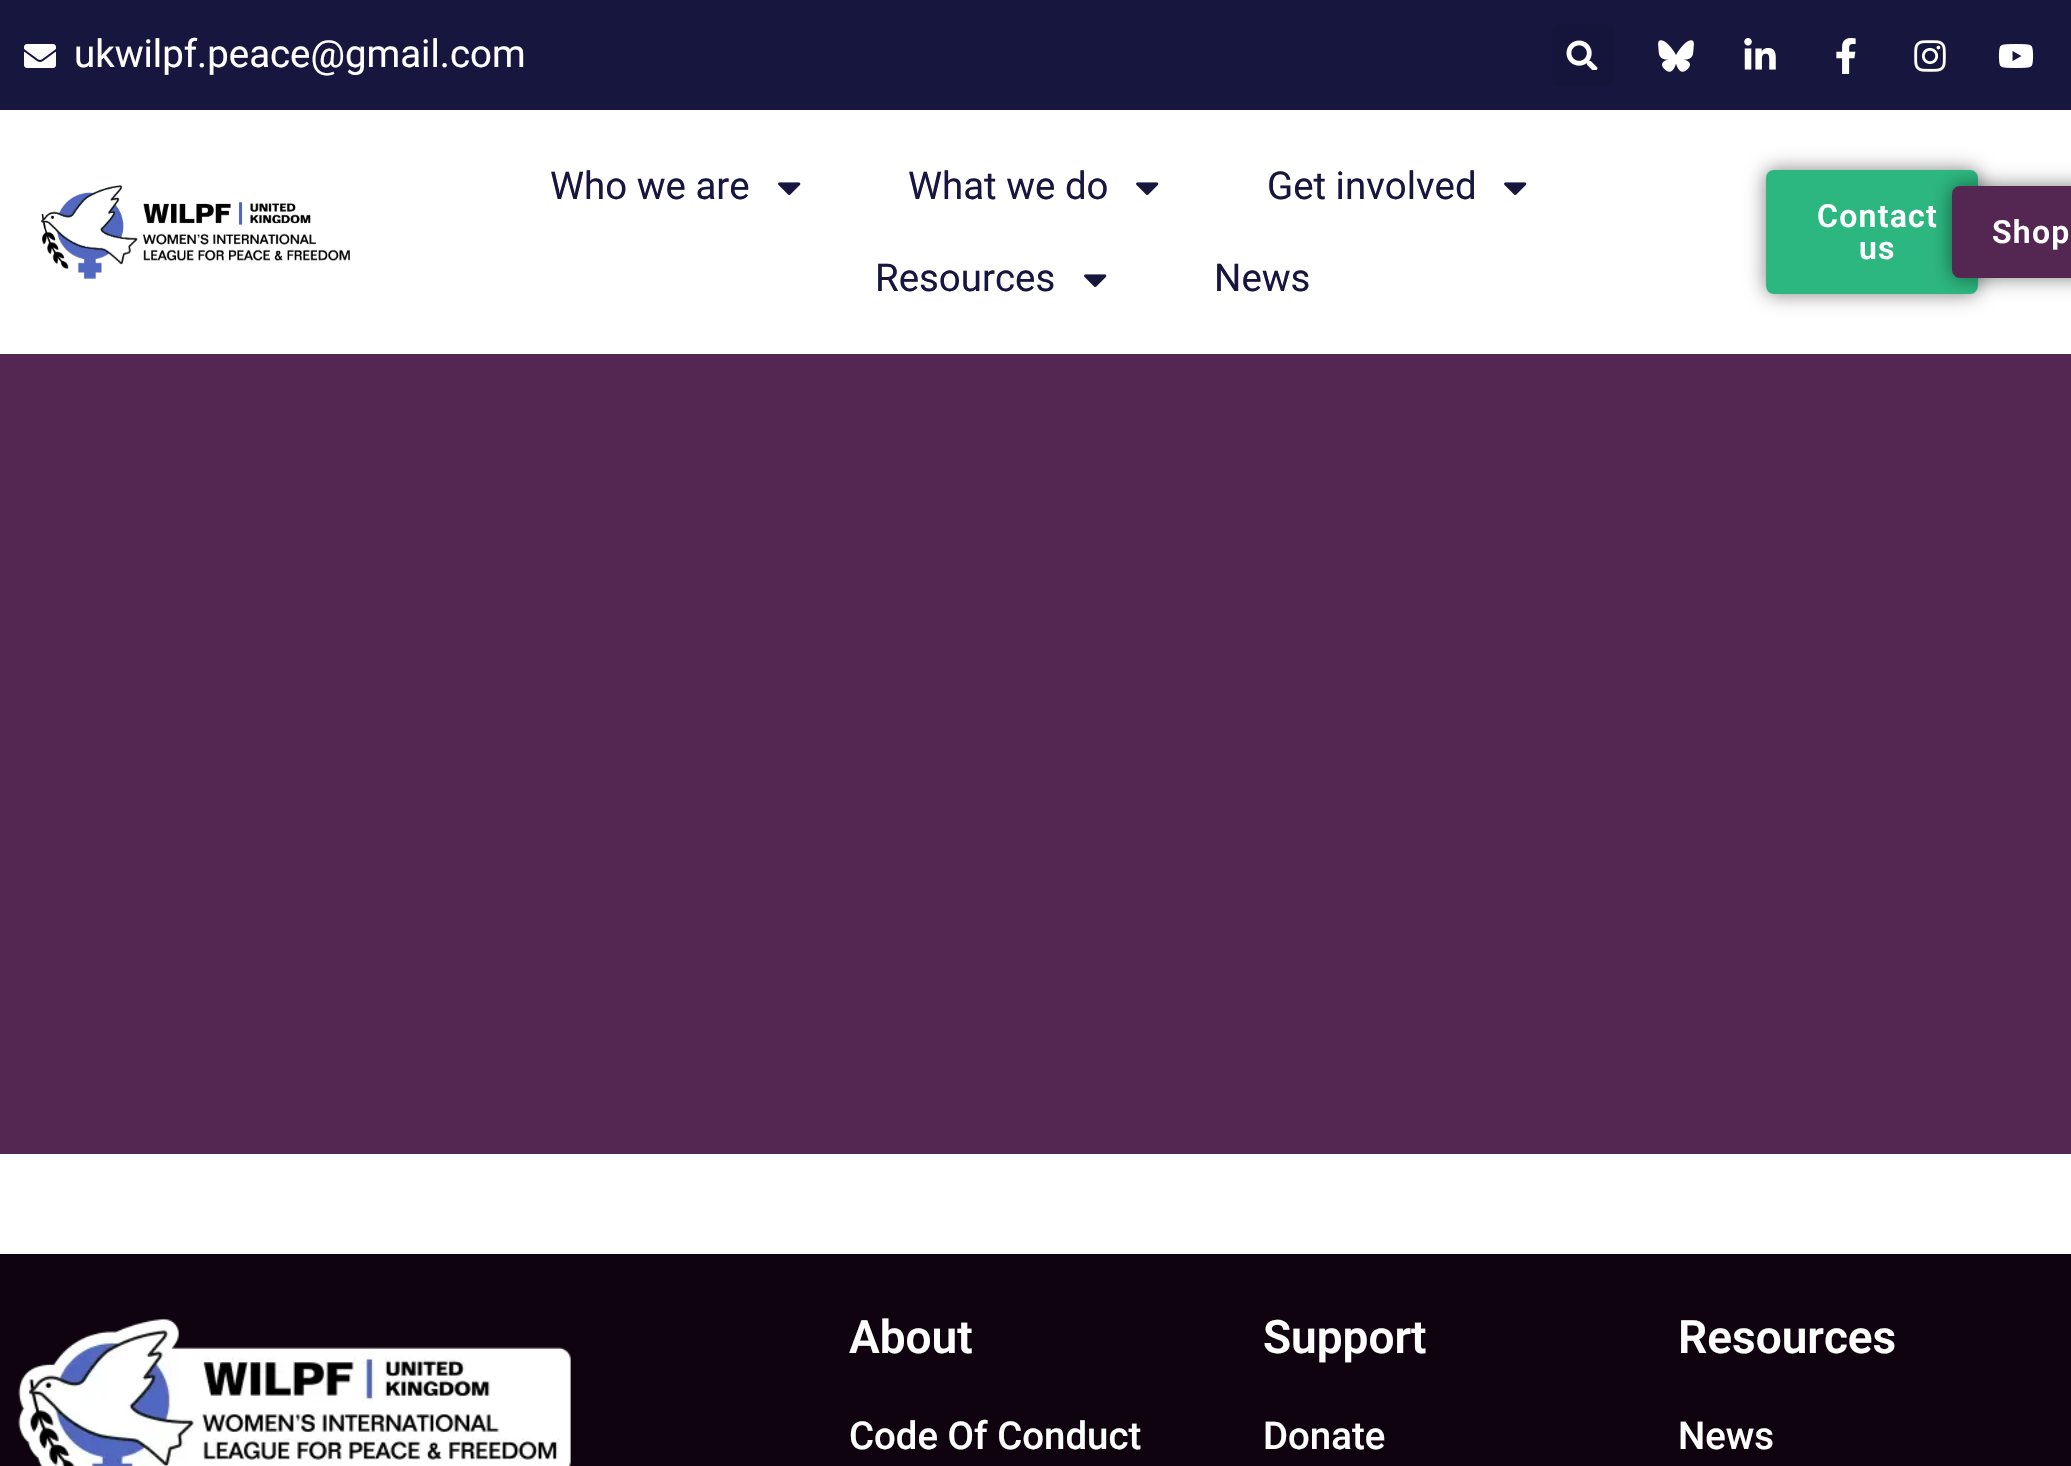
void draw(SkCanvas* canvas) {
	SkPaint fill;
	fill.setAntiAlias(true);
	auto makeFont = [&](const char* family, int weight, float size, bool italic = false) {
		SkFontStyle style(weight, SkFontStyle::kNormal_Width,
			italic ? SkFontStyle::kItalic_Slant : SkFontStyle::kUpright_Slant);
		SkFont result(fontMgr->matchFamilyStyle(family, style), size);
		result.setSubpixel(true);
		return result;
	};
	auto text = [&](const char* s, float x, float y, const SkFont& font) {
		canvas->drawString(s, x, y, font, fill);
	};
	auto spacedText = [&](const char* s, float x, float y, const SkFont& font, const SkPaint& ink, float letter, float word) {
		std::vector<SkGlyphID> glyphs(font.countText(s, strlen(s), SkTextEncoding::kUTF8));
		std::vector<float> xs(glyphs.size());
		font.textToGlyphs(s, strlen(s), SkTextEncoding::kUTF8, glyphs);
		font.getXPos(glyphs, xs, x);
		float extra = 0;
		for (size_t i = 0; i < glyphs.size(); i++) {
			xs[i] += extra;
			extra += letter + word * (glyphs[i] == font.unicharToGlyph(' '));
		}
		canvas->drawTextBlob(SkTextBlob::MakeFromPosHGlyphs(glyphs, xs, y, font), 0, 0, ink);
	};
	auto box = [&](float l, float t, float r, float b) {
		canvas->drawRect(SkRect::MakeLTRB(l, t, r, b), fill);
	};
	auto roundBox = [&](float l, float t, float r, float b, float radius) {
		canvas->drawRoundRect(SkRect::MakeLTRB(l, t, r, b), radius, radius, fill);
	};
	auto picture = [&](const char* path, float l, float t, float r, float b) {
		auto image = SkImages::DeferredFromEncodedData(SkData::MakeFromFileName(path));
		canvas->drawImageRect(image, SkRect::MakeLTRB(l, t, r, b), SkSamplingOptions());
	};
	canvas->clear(0xFFFFFFFF);
	fill.setColor(0xFF16163F);
	box(0, 0, 2071, 110);
	picture("image0.png", 24, 44, 56, 68);
	fill.setColor(0xFF15153C);
	roundBox(1552, 24, 1614, 86, 6);
	picture("image1.png", 1566, 40, 1598, 70);
	picture("image2.png", 1658, 40, 1694, 72);
	picture("image3.png", 1744, 38, 1776, 70);
	picture("image4.png", 1836, 38, 1856, 74);
	picture("image5.png", 1914, 40, 1946, 72);
	picture("image6.png", 1998, 44, 2034, 68);
	picture("image7.png", 41, 185, 350, 279);
	picture("image8.png", 778, 182, 801, 195);
	picture("image8.png", 1136, 182, 1159, 195);
	picture("image8.png", 1504, 182, 1527, 195);
	picture("image8.png", 1084, 274, 1107, 287);
	fill.setColor(0x80000000);
	fill.setMaskFilter(SkMaskFilter::MakeBlur(kNormal_SkBlurStyle, 10));
	canvas->drawRoundRect(SkRect::MakeLTRB(1766, 170, 1978, 294), 8, 8, fill);
	fill.setMaskFilter(nullptr);
	fill.setColor(0xFF2DB780);
	roundBox(1766, 170, 1978, 294, 8);
	fill.setColor(0x80000000);
	fill.setMaskFilter(SkMaskFilter::MakeBlur(kNormal_SkBlurStyle, 10));
	canvas->drawRoundRect(SkRect::MakeLTRB(1952, 186, 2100, 278), 8, 8, fill);
	fill.setMaskFilter(nullptr);
	fill.setColor(0xFF532752);
	roundBox(1952, 186, 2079, 278, 8);
	box(0, 354, 2071, 1154);
	fill.setColor(0xFF0F030F);
	box(0, 1254, 2071, 1466);
	picture("image9.png", 18, 1318, 571, 1466);
	auto font1 = makeFont("Roboto", 400, 38.4f);
	fill.setColor(0xFFFFFFFF);
	text("ukwilpf.peace@gmail.com", 74, 67, font1);
	fill.setColor(0xFF16163F);
	text("Who we are", 550, 199, font1);
	text("What we do", 908, 199, font1);
	text("Get involved", 1267, 199, font1);
	text("Resources", 875, 291, font1);
	text("News", 1214, 291, font1);
	auto font2 = makeFont("Roboto", 600, 32);
	fill.setColor(0xFFFFFFFF);
	spacedText("Contact", 1817, 227, font2, fill, 1.25f, 0);
	spacedText("us", 1859, 259, font2, fill, 1.25f, 0);
	spacedText("Shop", 1992, 243, font2, fill, 1.25f, 0);
	auto font3 = makeFont("Roboto", 600, 46);
	text("About", 849, 1353, font3);
	auto font4 = makeFont("Roboto", 500, 38.4f);
	text("Code Of Conduct", 849, 1449, font4);
	text("Support", 1263, 1353, font3);
	text("Donate", 1263, 1449, font4);
	text("Resources", 1678, 1353, font3);
	text("News", 1678, 1449, font4);
}
